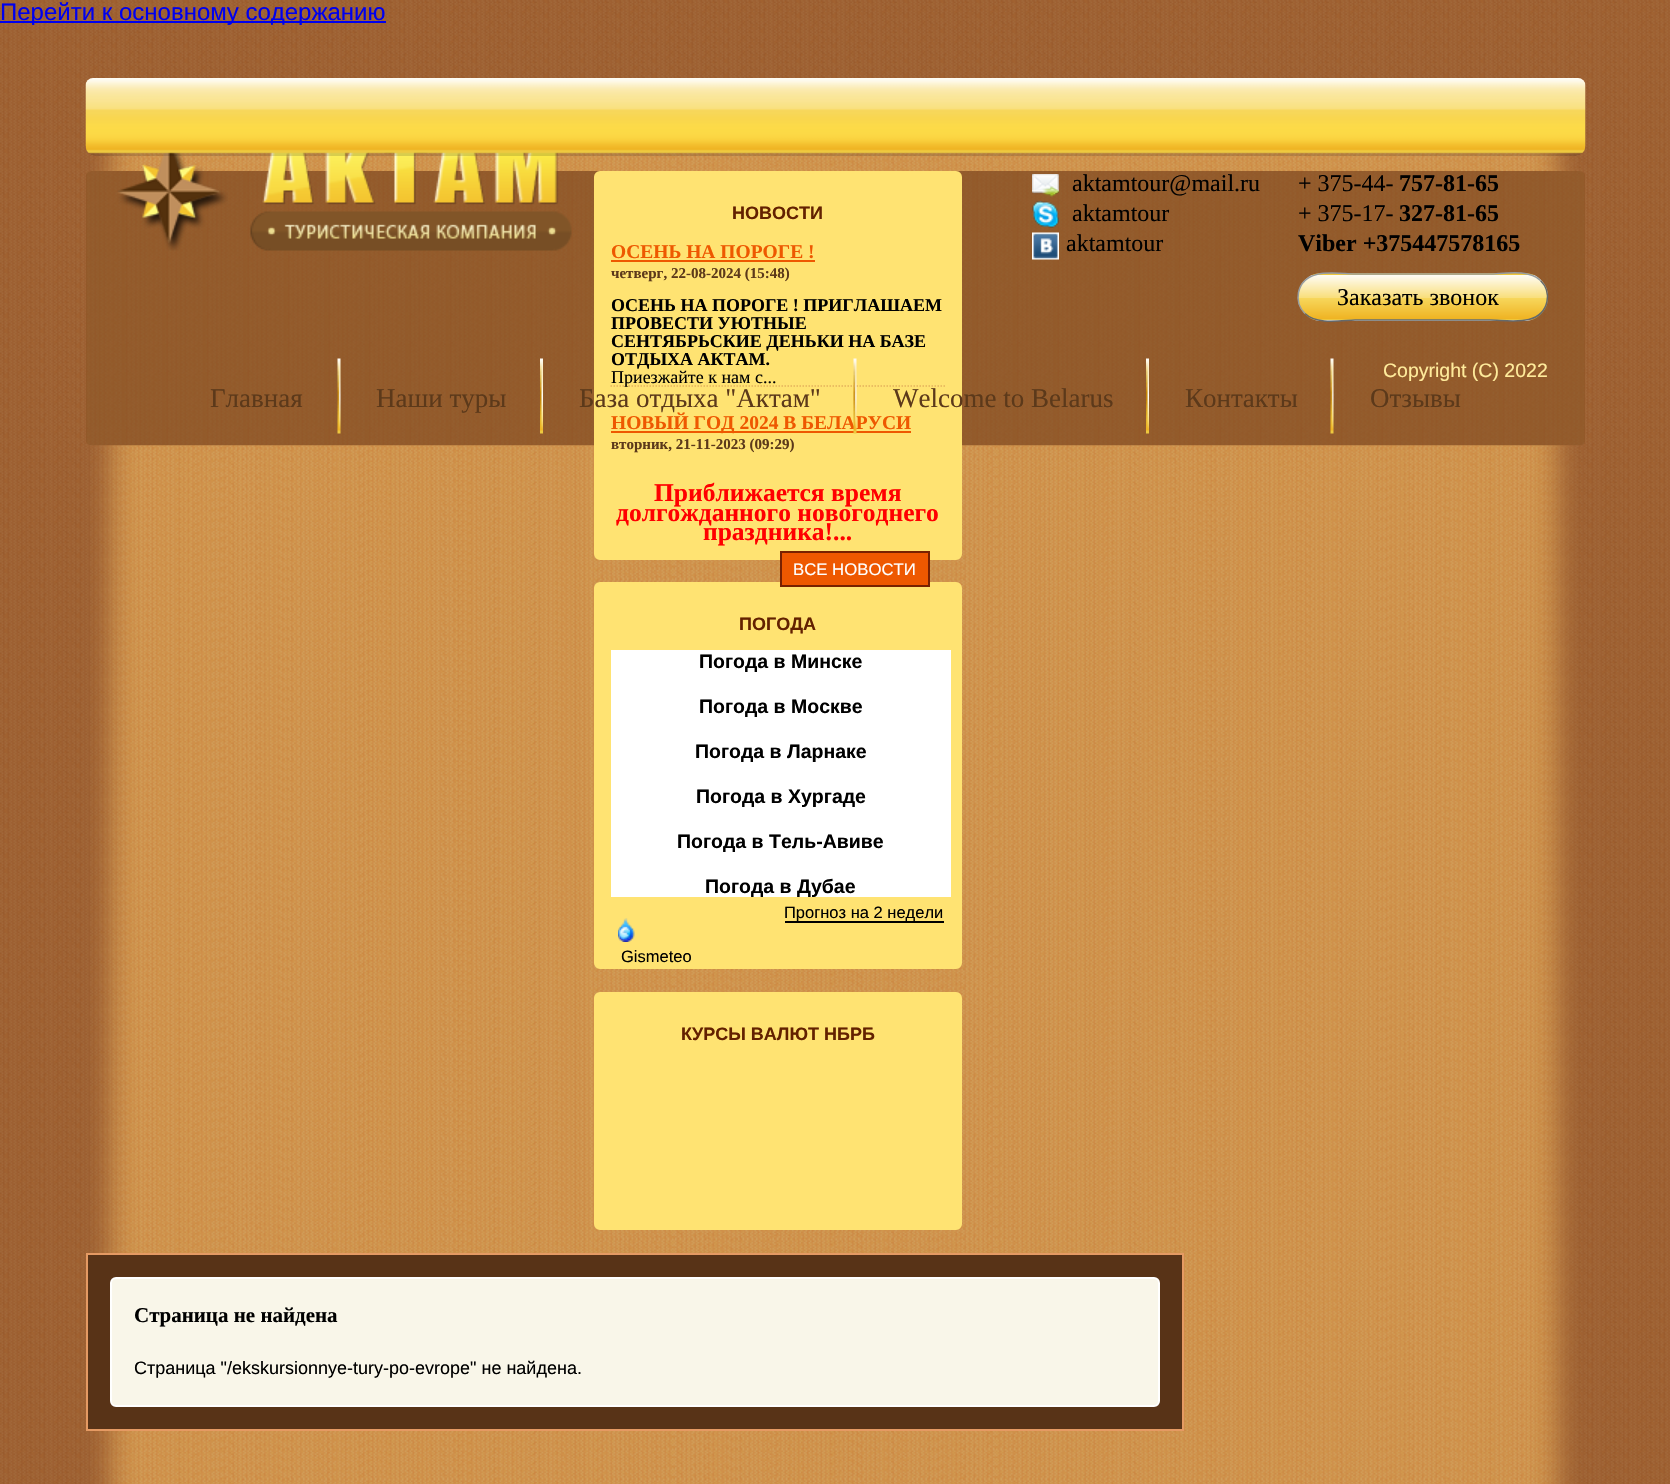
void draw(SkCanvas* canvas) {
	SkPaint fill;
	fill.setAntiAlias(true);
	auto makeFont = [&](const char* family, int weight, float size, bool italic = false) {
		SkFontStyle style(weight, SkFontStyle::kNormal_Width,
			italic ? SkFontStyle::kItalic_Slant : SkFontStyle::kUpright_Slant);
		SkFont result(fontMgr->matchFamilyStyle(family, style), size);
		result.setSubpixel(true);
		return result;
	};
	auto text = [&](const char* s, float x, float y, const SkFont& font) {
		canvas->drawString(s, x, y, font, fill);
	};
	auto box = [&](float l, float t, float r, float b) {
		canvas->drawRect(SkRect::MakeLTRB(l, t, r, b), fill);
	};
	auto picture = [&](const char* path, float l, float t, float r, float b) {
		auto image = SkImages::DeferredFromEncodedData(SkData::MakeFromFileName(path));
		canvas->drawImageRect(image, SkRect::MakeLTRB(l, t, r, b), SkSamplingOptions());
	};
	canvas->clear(0xFFFFFFFF);
	picture("image0.png", 0, 0, 1670, 1484);
	fill.setColor(0xFF0000EE);
	box(0, 21, 386, 23);
	picture("image1.png", 90, 78, 1579, 1484);
	picture("image8.png", 86, 171, 1585, 446);
	fill.setColor(0xFFFFE372);
	canvas->drawRoundRect(SkRect::MakeLTRB(595, 172, 961, 559), 5, 5, fill);
	fill.setStyle(SkPaint::kStroke_Style);
	fill.setStrokeWidth(2);
	canvas->drawRoundRect(SkRect::MakeLTRB(595, 172, 961, 559), 5, 5, fill);
	fill.setStrokeWidth(1.5f);
	fill.setColor(0xFFE5B25B);
	fill.setPathEffect(SkDashPathEffect::Make({{1.5f, 1.5f}}, 0));
	canvas->drawPath(SkPathBuilder().moveTo(610.5f, 386).lineTo(945, 386).detach(), fill);
	fill.setPathEffect(nullptr);
	fill.setStyle(SkPaint::kFill_Style);
	fill.setColor(0xFFEE5800);
	box(611, 260, 815, 262);
	box(611, 431, 911, 433);
	fill.setColor(0xFFFFE372);
	canvas->drawRoundRect(SkRect::MakeLTRB(595, 583, 961, 968), 5, 5, fill);
	fill.setStyle(SkPaint::kStroke_Style);
	fill.setStrokeWidth(2);
	canvas->drawRoundRect(SkRect::MakeLTRB(595, 583, 961, 968), 5, 5, fill);
	fill.setStyle(SkPaint::kFill_Style);
	fill.setColor(0xFFEE5800);
	canvas->drawRect(SkRect::MakeLTRB(781, 552, 929, 586), fill);
	fill.setStyle(SkPaint::kStroke_Style);
	fill.setColor(0xFF782101);
	canvas->drawRect(SkRect::MakeLTRB(781, 552, 929, 586), fill);
	fill.setStyle(SkPaint::kFill_Style);
	fill.setColor(0xFFFFFFFF);
	box(611, 650, 951, 897);
	fill.setColor(0xFF000000);
	box(785, 921, 944, 923);
	picture("image2.png", 618, 918, 635, 942);
	fill.setColor(0xFFFFE372);
	canvas->drawRoundRect(SkRect::MakeLTRB(595, 993, 961, 1229), 5, 5, fill);
	fill.setStyle(SkPaint::kStroke_Style);
	canvas->drawRoundRect(SkRect::MakeLTRB(595, 993, 961, 1229), 5, 5, fill);
	fill.setStyle(SkPaint::kFill_Style);
	fill.setColor(0xFF583317);
	canvas->drawRect(SkRect::MakeLTRB(87, 1254, 1183, 1430), fill);
	fill.setStyle(SkPaint::kStroke_Style);
	fill.setColor(0xFFE59A63);
	canvas->drawRect(SkRect::MakeLTRB(87, 1254, 1183, 1430), fill);
	fill.setStyle(SkPaint::kFill_Style);
	fill.setColor(0xFFF9F6E9);
	canvas->drawRoundRect(SkRect::MakeLTRB(111, 1278, 1159, 1406), 5, 5, fill);
	fill.setStyle(SkPaint::kStroke_Style);
	fill.setColor(0xFFFFFFFF);
	canvas->drawRoundRect(SkRect::MakeLTRB(111, 1278, 1159, 1406), 5, 5, fill);
	picture("image3.png", 117, 152, 228, 251);
	picture("image4.png", 250, 152, 572, 251);
	picture("image5.png", 1032, 174, 1059, 197);
	picture("image6.png", 1032, 201, 1059, 228);
	picture("image7.png", 1032, 232, 1059, 260);
	canvas->save();
	canvas->clipPath(SkPathBuilder().moveTo(1322, 273).lineTo(1524, 273).cubicTo(1537.5f, 273, 1548, 283.5f, 1548, 297).cubicTo(1548, 310.5f, 1537.5f, 321, 1524, 321).lineTo(1322, 321).cubicTo(1308.5f, 321, 1298, 310.5f, 1298, 297).cubicTo(1298, 283.5f, 1308.5f, 273, 1322, 273).close().detach(), true);
	fill.setStyle(SkPaint::kFill_Style);
	{
		const SkColor colors[] = {0xFFFEFCF5, 0xFFF9DF7D, 0xFFF7D75C, 0xFFEFB322, 0xFFEEC93F};
		const float stops[] = {0, 0.5f, 0.51f, 0.98f, 0.99f};
		const SkPoint ends[] = {{1423, 230}, {1423, 275}};
		fill.setShader(SkGradientShader::MakeLinear(ends, colors, stops, 5, SkTileMode::kClamp));
		fill.setAlpha(255);
	}
	box(1312, 273, 1534, 275);
	{
		const SkColor colors[] = {0xFFFEFCF5, 0xFFF9DF7D, 0xFFF7D75C, 0xFFEFB322, 0xFFEEC93F};
		const float stops[] = {0, 0.5f, 0.51f, 0.98f, 0.99f};
		const SkPoint ends[] = {{1423, 275}, {1423, 320}};
		fill.setShader(SkGradientShader::MakeLinear(ends, colors, stops, 5, SkTileMode::kClamp));
		fill.setAlpha(255);
	}
	box(1298, 275, 1548, 320);
	{
		const SkColor colors[] = {0xFFFEFCF5, 0xFFF9DF7D, 0xFFF7D75C, 0xFFEFB322, 0xFFEEC93F};
		const float stops[] = {0, 0.5f, 0.51f, 0.98f, 0.99f};
		const SkPoint ends[] = {{1423, 320}, {1423, 365}};
		fill.setShader(SkGradientShader::MakeLinear(ends, colors, stops, 5, SkTileMode::kClamp));
		fill.setAlpha(255);
	}
	box(1315, 320, 1531, 321);
	canvas->restore();
	fill.setStyle(SkPaint::kStroke_Style);
	fill.setStrokeWidth(1.5f);
	fill.setShader(nullptr);
	fill.setColor(0xFF65696B);
	canvas->drawPath(SkPathBuilder().moveTo(1540.5f, 280.5f).cubicTo(1546, 286, 1548.5f, 294, 1547, 301.5f).cubicTo(1541.5f, 327.5f, 1508, 320, 1490, 320).lineTo(1355, 320).cubicTo(1343.5f, 320, 1317, 325.5f, 1305, 313.5f).detach(), fill);
	fill.setColor(0xFF979DA1);
	canvas->drawPath(SkPathBuilder().moveTo(1305, 313.5f).cubicTo(1299.5f, 308, 1297, 300, 1298.5f, 292.5f).cubicTo(1304, 266.5f, 1337.5f, 274, 1355, 274).lineTo(1490, 274).cubicTo(1502, 274, 1528.5f, 268.5f, 1540.5f, 280.5f).detach(), fill);
	picture("image9.png", 85, 78, 1586, 156);
	picture("image10.png", 337, 358, 341, 434);
	picture("image11.png", 540, 358, 543, 434);
	picture("image13.png", 1146, 358, 1149, 434);
	picture("image14.png", 1330, 358, 1334, 434);
	auto font1 = makeFont("Liberation Sans", 400, 24);
	fill.setStyle(SkPaint::kFill_Style);
	fill.setColor(0xFF0000EE);
	text("Перейти к основному содержанию", 0, 20, font1);
	auto font2 = makeFont("Liberation Sans", 700, 18);
	fill.setColor(0xFF632100);
	text("НОВОСТИ", 732, 219, font2);
	auto font3 = makeFont("Liberation Serif", 700, 19.5f);
	fill.setColor(0xFFEE5800);
	text("ОСЕНЬ НА ПОРОГЕ !", 611, 258, font3);
	auto font4 = makeFont("Liberation Serif", 700, 15);
	fill.setColor(0xFF5C391A);
	text("четверг, 22-08-2024 (15:48)", 611, 278, font4);
	auto font5 = makeFont("Liberation Serif", 700, 18);
	fill.setColor(0xFF000000);
	text("ОСЕНЬ НА ПОРОГЕ ! ПРИГЛАШАЕМ", 611, 311, font5);
	text("ПРОВЕСТИ УЮТНЫЕ", 611, 329, font5);
	text("СЕНТЯБРЬСКИЕ ДЕНЬКИ НА БАЗЕ", 611, 347, font5);
	text("ОТДЫХА АКТАМ.", 611, 365, font5);
	auto font6 = makeFont("Liberation Serif", 400, 18);
	text("Приезжайте к нам с...", 611, 383, font6);
	fill.setColor(0xFFEE5800);
	text("НОВЫЙ ГОД 2024 В БЕЛАРУСИ", 611, 429, font3);
	fill.setColor(0xFF5C391A);
	text("вторник, 21-11-2023 (09:29)", 611, 449, font4);
	auto font7 = makeFont("Liberation Serif", 700, 25.5f);
	fill.setColor(0xFFFF0000);
	text("Приближается время", 654, 501, font7);
	text("долгожданного новогоднего", 616, 521, font7);
	text("праздника!...", 703, 540, font7);
	auto font8 = makeFont("Liberation Sans", 400, 16.75f);
	fill.setColor(0xFFFFFFFF);
	text("ВСЕ НОВОСТИ", 793, 575, font8);
	fill.setColor(0xFF632100);
	text("ПОГОДА", 739, 630, font2);
	auto font9 = makeFont("Liberation Sans", 700, 19.5f);
	fill.setColor(0xFF000000);
	text("Погода в Минске", 699, 668, font9);
	text("Погода в Москве", 699, 713, font9);
	text("Погода в Ларнаке", 695, 758, font9);
	text("Погода в Хургаде", 696, 803, font9);
	text("Погода в Тель-Авиве", 677, 848, font9);
	text("Погода в Дубае", 705, 893, font9);
	auto font10 = makeFont("Liberation Sans", 400, 16.5f);
	text("Прогноз на 2 недели", 784, 918, font10);
	text("Gismeteo", 621, 962, font10);
	fill.setColor(0xFF632100);
	text("КУРСЫ ВАЛЮТ НБРБ", 681, 1040, font2);
	auto font11 = makeFont("Liberation Serif", 700, 21);
	fill.setColor(0xFF000000);
	text("Страница не найдена", 134, 1322, font11);
	auto font12 = makeFont("Liberation Sans", 400, 18);
	text("Страница \"/ekskursionnye-tury-po-evrope\" не найдена.", 134, 1374, font12);
	auto font13 = makeFont("Liberation Serif", 400, 24);
	text("aktamtour@mail.ru", 1072, 191, font13);
	text("aktamtour", 1072, 221, font13);
	text("aktamtour", 1066, 251, font13);
	text("+ 375-44-", 1298, 191, font13);
	auto font14 = makeFont("Liberation Serif", 700, 24);
	text("757-81-65", 1399, 191, font14);
	text("+ 375-17-", 1298, 221, font13);
	text("327-81-65", 1399, 221, font14);
	text("Viber +375447578165", 1298, 251, font14);
	text("Заказать звонок", 1337, 305, font13);
	auto font15 = makeFont("Liberation Sans", 400, 19.5f);
	fill.setColor(0xFFFFEB9B);
	text("Copyright (C) 2022", 1383, 377, font15);
	auto font16 = makeFont("Liberation Serif", 400, 27);
	fill.setColor(0xFF5C391A);
	text("Главная", 210, 407, font16);
	text("Наши туры", 376, 407, font16);
	picture("image12.png", 853, 358, 857, 434);
	text("База отдыха \"Актам\"", 579, 407, font16);
	text("Welcome to Belarus", 893, 407, font16);
	text("Контакты", 1185, 407, font16);
	text("Отзывы", 1370, 407, font16);
}
